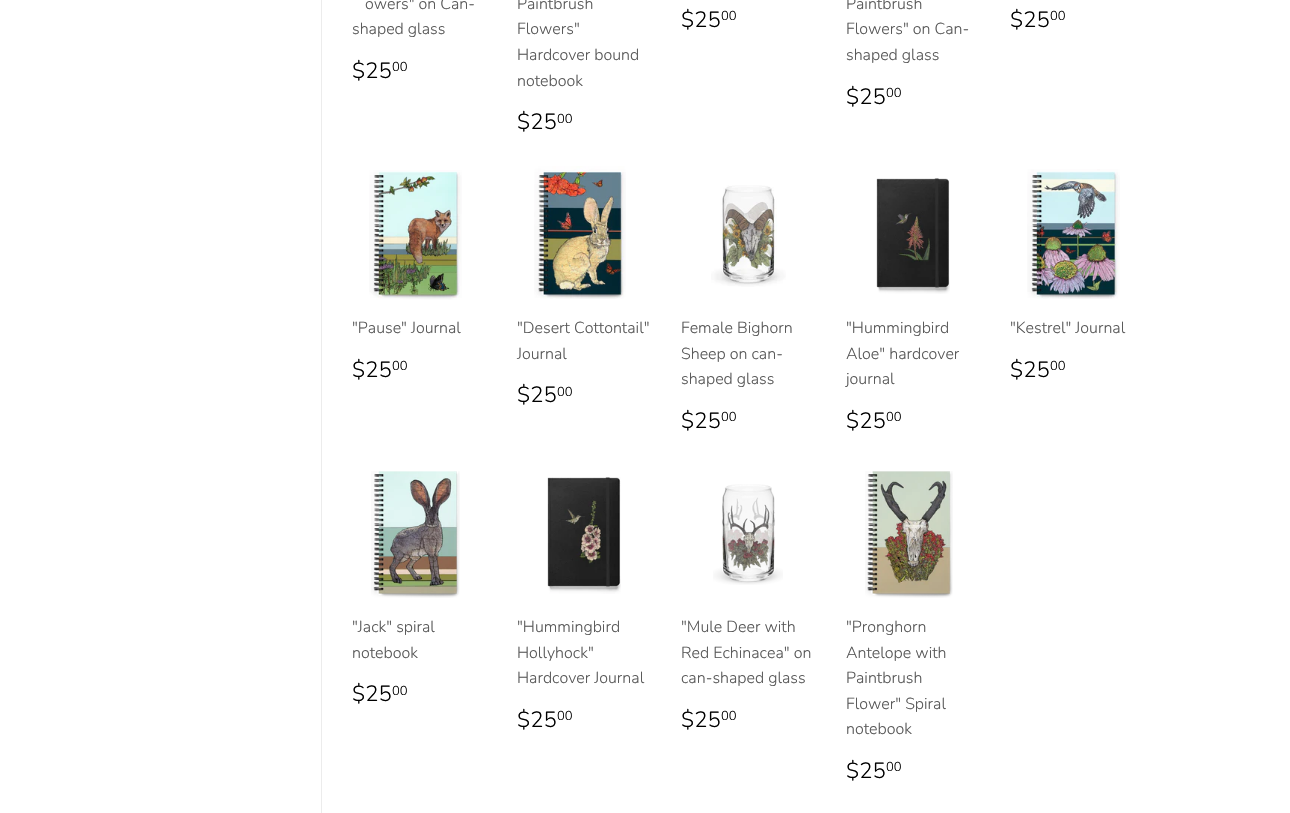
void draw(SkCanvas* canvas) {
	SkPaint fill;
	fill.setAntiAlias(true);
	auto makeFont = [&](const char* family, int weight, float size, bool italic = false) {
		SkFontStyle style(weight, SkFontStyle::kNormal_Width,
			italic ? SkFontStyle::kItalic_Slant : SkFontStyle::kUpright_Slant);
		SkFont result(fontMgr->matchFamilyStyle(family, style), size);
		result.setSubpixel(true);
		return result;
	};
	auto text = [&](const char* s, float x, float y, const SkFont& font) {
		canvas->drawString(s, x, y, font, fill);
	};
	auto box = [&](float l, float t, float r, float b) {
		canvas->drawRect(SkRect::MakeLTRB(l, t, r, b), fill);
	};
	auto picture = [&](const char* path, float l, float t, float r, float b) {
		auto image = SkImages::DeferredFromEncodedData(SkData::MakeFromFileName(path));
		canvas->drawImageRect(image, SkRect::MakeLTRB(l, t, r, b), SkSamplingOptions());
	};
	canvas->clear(0xFFFFFFFF);
	fill.setColor(0xFFECECEC);
	box(321, 0, 322, 813);
	picture("image0.png", 369, 170, 462, 300);
	picture("image1.png", 534, 166, 626, 299);
	picture("image2.png", 711, 185, 786, 287);
	picture("image3.png", 876, 178, 950, 294);
	picture("image4.png", 1027, 169, 1120, 299);
	picture("image5.png", 371, 471, 460, 598);
	picture("image6.png", 547, 477, 621, 594);
	picture("image7.png", 713, 484, 783, 585);
	picture("image8.png", 865, 471, 953, 598);
	auto font1 = makeFont("Nunito", 300, 16);
	fill.setColor(0xFF585858);
	text("owers\" on Can-", 365, 9, font1);
	text("shaped glass", 352, 34, font1);
	auto font2 = makeFont("Nunito", 300, 22);
	fill.setColor(0xFF000000);
	text("$25", 352, 78, font2);
	auto font3 = makeFont("Nunito", 300, 13);
	text("00", 392, 71, font3);
	fill.setColor(0xFF585858);
	text("Paintbrush", 517, 9, font1);
	text("Flowers\"", 517, 34, font1);
	text("Hardcover bound", 517, 60, font1);
	text("notebook", 517, 86, font1);
	fill.setColor(0xFF000000);
	text("$25", 517, 129, font2);
	text("00", 557, 123, font3);
	text("$25", 681, 27, font2);
	text("00", 721, 20, font3);
	fill.setColor(0xFF585858);
	text("Paintbrush", 846, 9, font1);
	text("Flowers\" on Can-", 846, 34, font1);
	text("shaped glass", 846, 60, font1);
	fill.setColor(0xFF000000);
	text("$25", 846, 104, font2);
	text("00", 886, 97, font3);
	text("$25", 1010, 27, font2);
	text("00", 1050, 20, font3);
	fill.setColor(0xFF585858);
	text("\"Pause\" Journal", 352, 333, font1);
	fill.setColor(0xFF000000);
	text("$25", 352, 377, font2);
	text("00", 392, 370, font3);
	fill.setColor(0xFF585858);
	text("\"Desert Cottontail\"", 517, 333, font1);
	text("Journal", 517, 359, font1);
	fill.setColor(0xFF000000);
	text("$25", 517, 402, font2);
	text("00", 557, 396, font3);
	fill.setColor(0xFF585858);
	text("Female Bighorn", 681, 333, font1);
	text("Sheep on can-", 681, 359, font1);
	text("shaped glass", 681, 384, font1);
	fill.setColor(0xFF000000);
	text("$25", 681, 428, font2);
	text("00", 721, 421, font3);
	fill.setColor(0xFF585858);
	text("\"Hummingbird", 846, 333, font1);
	text("Aloe\" hardcover", 846, 359, font1);
	text("journal", 846, 384, font1);
	fill.setColor(0xFF000000);
	text("$25", 846, 428, font2);
	text("00", 886, 421, font3);
	fill.setColor(0xFF585858);
	text("\"Kestrel\" Journal", 1010, 333, font1);
	fill.setColor(0xFF000000);
	text("$25", 1010, 377, font2);
	text("00", 1050, 370, font3);
	fill.setColor(0xFF585858);
	text("\"Jack\" spiral", 352, 632, font1);
	text("notebook", 352, 658, font1);
	fill.setColor(0xFF000000);
	text("$25", 352, 701, font2);
	text("00", 392, 695, font3);
	fill.setColor(0xFF585858);
	text("\"Hummingbird", 517, 632, font1);
	text("Hollyhock\"", 517, 658, font1);
	text("Hardcover Journal", 517, 683, font1);
	fill.setColor(0xFF000000);
	text("$25", 517, 727, font2);
	text("00", 557, 720, font3);
	fill.setColor(0xFF585858);
	text("\"Mule Deer with", 681, 632, font1);
	text("Red Echinacea\" on", 681, 658, font1);
	text("can-shaped glass", 681, 683, font1);
	fill.setColor(0xFF000000);
	text("$25", 681, 727, font2);
	text("00", 721, 720, font3);
	fill.setColor(0xFF585858);
	text("\"Pronghorn", 846, 632, font1);
	text("Antelope with", 846, 658, font1);
	text("Paintbrush", 846, 683, font1);
	text("Flower\" Spiral", 846, 709, font1);
	text("notebook", 846, 734, font1);
	fill.setColor(0xFF000000);
	text("$25", 846, 778, font2);
	text("00", 886, 771, font3);
}
